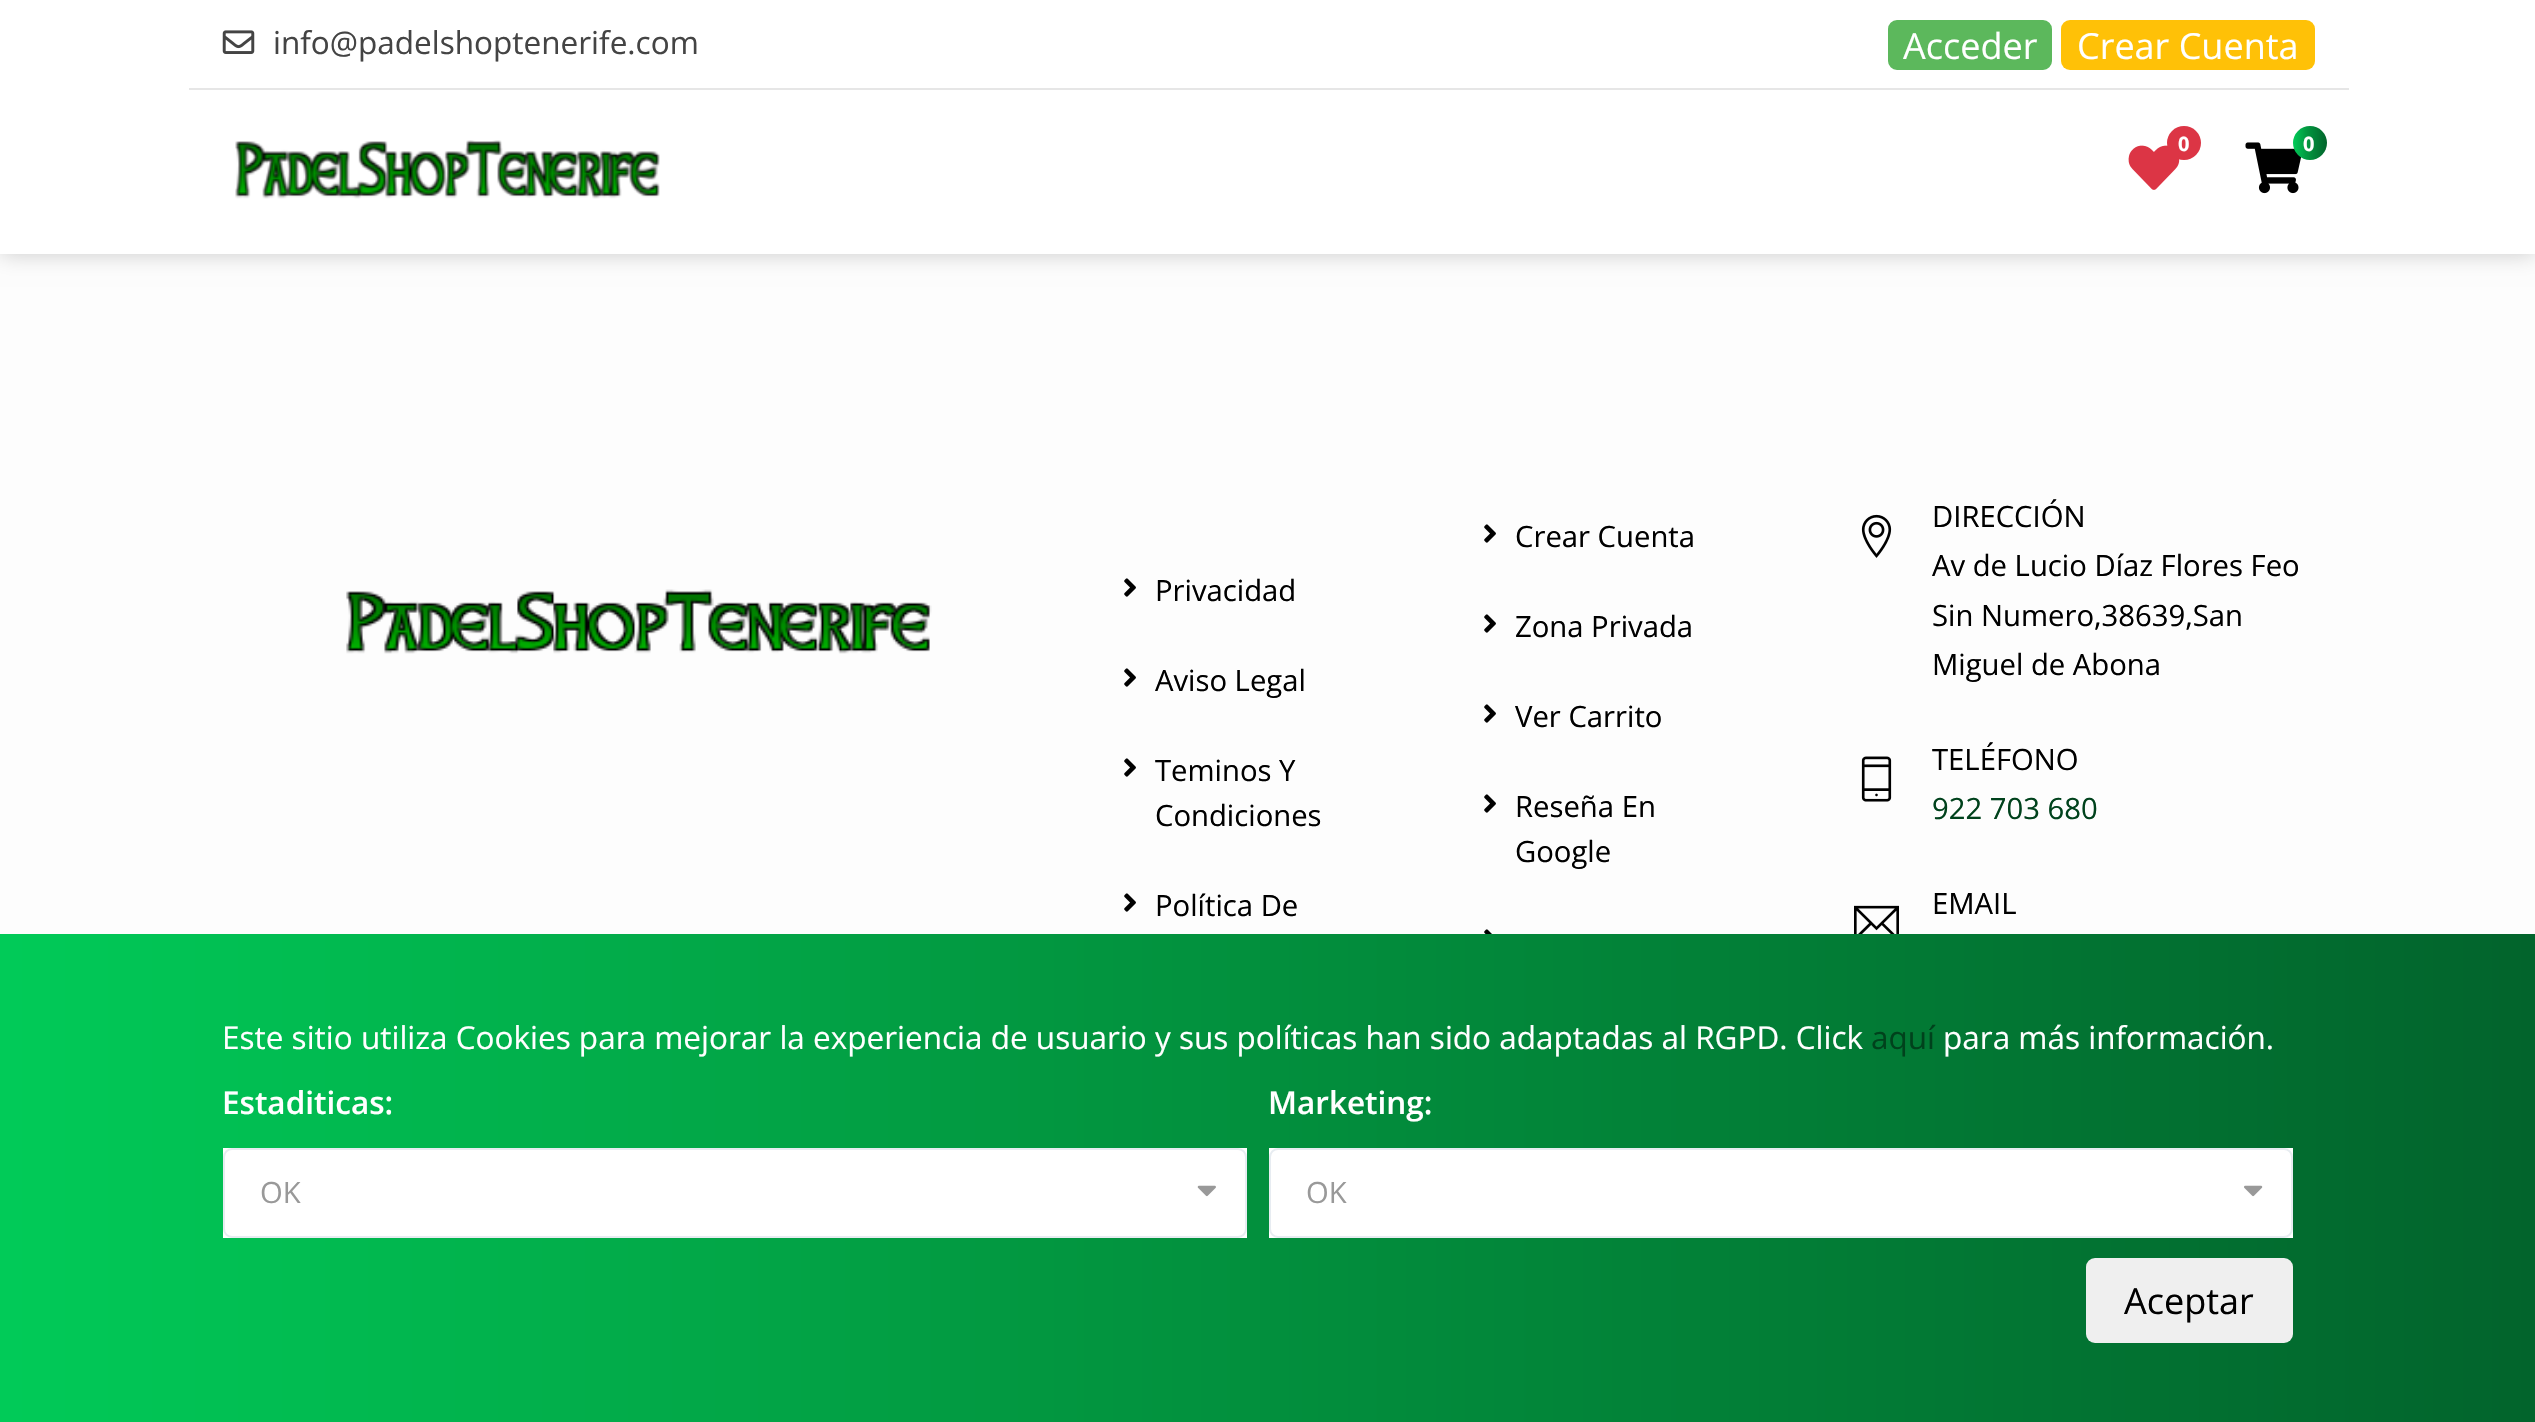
void draw(SkCanvas* canvas) {
	SkPaint fill;
	fill.setAntiAlias(true);
	auto makeFont = [&](const char* family, int weight, float size, bool italic = false) {
		SkFontStyle style(weight, SkFontStyle::kNormal_Width,
			italic ? SkFontStyle::kItalic_Slant : SkFontStyle::kUpright_Slant);
		SkFont result(fontMgr->matchFamilyStyle(family, style), size);
		result.setSubpixel(true);
		return result;
	};
	auto text = [&](const char* s, float x, float y, const SkFont& font) {
		canvas->drawString(s, x, y, font, fill);
	};
	auto box = [&](float l, float t, float r, float b) {
		canvas->drawRect(SkRect::MakeLTRB(l, t, r, b), fill);
	};
	auto roundBox = [&](float l, float t, float r, float b, float radius) {
		canvas->drawRoundRect(SkRect::MakeLTRB(l, t, r, b), radius, radius, fill);
	};
	auto picture = [&](const char* path, float l, float t, float r, float b) {
		auto image = SkImages::DeferredFromEncodedData(SkData::MakeFromFileName(path));
		canvas->drawImageRect(image, SkRect::MakeLTRB(l, t, r, b), SkSamplingOptions());
	};
	canvas->clear(0xFFFDFDFD);
	fill.setColor(0x33000000);
	fill.setMaskFilter(SkMaskFilter::MakeBlur(kNormal_SkBlurStyle, 11));
	canvas->drawRect(SkRect::MakeLTRB(0, 0, 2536, 254), fill);
	fill.setMaskFilter(nullptr);
	fill.setColor(0xFFFFFFFF);
	box(0, 0, 2535, 254);
	fill.setColor(0xFFE6E6E6);
	box(189, 88, 2349, 90);
	picture("image0.png", 222, 30, 255, 54);
	fill.setColor(0xFF5CB85C);
	canvas->drawRoundRect(SkRect::MakeLTRB(1889, 21, 2051, 69), 8, 8, fill);
	fill.setStyle(SkPaint::kStroke_Style);
	fill.setStrokeWidth(2);
	canvas->drawRoundRect(SkRect::MakeLTRB(1889, 21, 2051, 69), 8, 8, fill);
	fill.setStyle(SkPaint::kFill_Style);
	fill.setColor(0xFFFFC107);
	roundBox(2061, 20, 2315, 70, 9);
	picture("image1.png", 235, 140, 660, 199);
	picture("image2.png", 2128, 145, 2180, 190);
	fill.setColor(0xFFDC3545);
	canvas->drawCircle(2184, 143, 17, fill);
	picture("image3.png", 2245, 142, 2302, 194);
	{
		const SkColor colors[] = {0xFF01CB58, 0xFF029740, 0xFF02642C};
		const float stops[] = {0, 0.41f, 1};
		const SkPoint ends[] = {{2293, 143}, {2327, 143}};
		fill.setShader(SkGradientShader::MakeLinear(ends, colors, stops, 3, SkTileMode::kClamp));
		fill.setAlpha(255);
	}
	canvas->drawCircle(2310, 143, 17, fill);
	picture("image4.png", 346, 589, 932, 654);
	picture("image5.png", 1124, 578, 1136, 597);
	picture("image5.png", 1124, 668, 1136, 687);
	picture("image5.png", 1124, 758, 1136, 777);
	picture("image5.png", 1124, 893, 1136, 912);
	picture("image5.png", 1484, 524, 1496, 543);
	picture("image5.png", 1484, 614, 1496, 633);
	picture("image5.png", 1484, 704, 1496, 723);
	picture("image5.png", 1484, 794, 1496, 813);
	picture("image6.png", 1484, 929, 1492, 934);
	picture("image7.png", 1861, 514, 1892, 558);
	picture("image8.png", 1861, 756, 1892, 802);
	picture("image9.png", 1854, 905, 1899, 934);
	{
		const SkColor colors[] = {0xFF01CB58, 0xFF029740, 0xFF02642C};
		const float stops[] = {0, 0.41f, 1};
		const SkPoint ends[] = {{0, 1178}, {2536, 1178}};
		fill.setShader(SkGradientShader::MakeLinear(ends, colors, stops, 3, SkTileMode::kClamp));
		fill.setAlpha(255);
	}
	box(0, 934, 2535, 1422);
	fill.setShader(nullptr);
	fill.setColor(0xFFFFFFFF);
	box(223, 1148, 1247, 1238);
	fill.setStyle(SkPaint::kStroke_Style);
	fill.setColor(0xFFE7ECF1);
	canvas->drawRoundRect(SkRect::MakeLTRB(224, 1149, 1246, 1237), 8, 8, fill);
	picture("image10.png", 1197, 1185, 1216, 1197);
	fill.setStyle(SkPaint::kFill_Style);
	fill.setColor(0xFFFFFFFF);
	box(1269, 1148, 2293, 1238);
	fill.setStyle(SkPaint::kStroke_Style);
	fill.setColor(0xFFE7ECF1);
	canvas->drawRoundRect(SkRect::MakeLTRB(1270, 1149, 2292, 1237), 8, 8, fill);
	picture("image11.png", 2244, 1185, 2263, 1197);
	fill.setStyle(SkPaint::kFill_Style);
	fill.setColor(0xFFEFEFEF);
	roundBox(2086, 1258, 2293, 1343, 9);
	auto font1 = makeFont("Open Sans", 400, 31.5f);
	fill.setColor(0xFF444444);
	text("info@padelshoptenerife.com", 273, 54, font1);
	auto font2 = makeFont("Open Sans", 400, 36);
	fill.setColor(0xFFFFFFFF);
	text("Acceder", 1903, 59, font2);
	text("Crear Cuenta", 2077, 59, font2);
	auto font3 = makeFont("Open Sans", 700, 20);
	text("0", 2178, 151, font3);
	text("0", 2303, 151, font3);
	auto font4 = makeFont("Open Sans", 400, 29.25f);
	fill.setColor(0xFF000000);
	text("Privacidad", 1155, 601, font4);
	text("Aviso Legal", 1155, 691, font4);
	text("Teminos Y", 1155, 781, font4);
	text("Condiciones", 1155, 826, font4);
	text("Política De", 1155, 916, font4);
	text("Crear Cuenta", 1515, 547, font4);
	text("Zona Privada", 1515, 637, font4);
	text("Ver Carrito", 1515, 727, font4);
	text("Reseña En", 1515, 817, font4);
	text("Google", 1515, 862, font4);
	text("DIRECCIÓN", 1932, 527, font4);
	text("Av de Lucio Díaz Flores Feo", 1932, 576, font4);
	text("Sin Numero,38639,San", 1932, 626, font4);
	text("Miguel de Abona", 1932, 675, font4);
	text("TELÉFONO", 1932, 770, font4);
	fill.setColor(0xFF00421C);
	text("922 703 680", 1932, 819, font4);
	fill.setColor(0xFF000000);
	text("EMAIL", 1932, 914, font4);
	fill.setColor(0xFFFFFFFF);
	text("Este sitio utiliza Cookies para mejorar la experiencia de usuario y sus políticas han sido adaptadas al RGPD. Click", 222, 1049, font1);
	fill.setColor(0xFF00421C);
	text("aquí", 1871, 1049, font1);
	fill.setColor(0xFFFFFFFF);
	text("para más información.", 1943, 1049, font1);
	auto font5 = makeFont("Open Sans", 600, 31.5f);
	text("Estaditicas:", 222, 1114, font5);
	fill.setColor(0xFF999999);
	text("OK", 260, 1203, font4);
	fill.setColor(0xFFFFFFFF);
	text("Marketing:", 1268, 1114, font5);
	fill.setColor(0xFF999999);
	text("OK", 1306, 1203, font4);
	fill.setColor(0xFF000000);
	text("Aceptar", 2124, 1314, font2);
}
